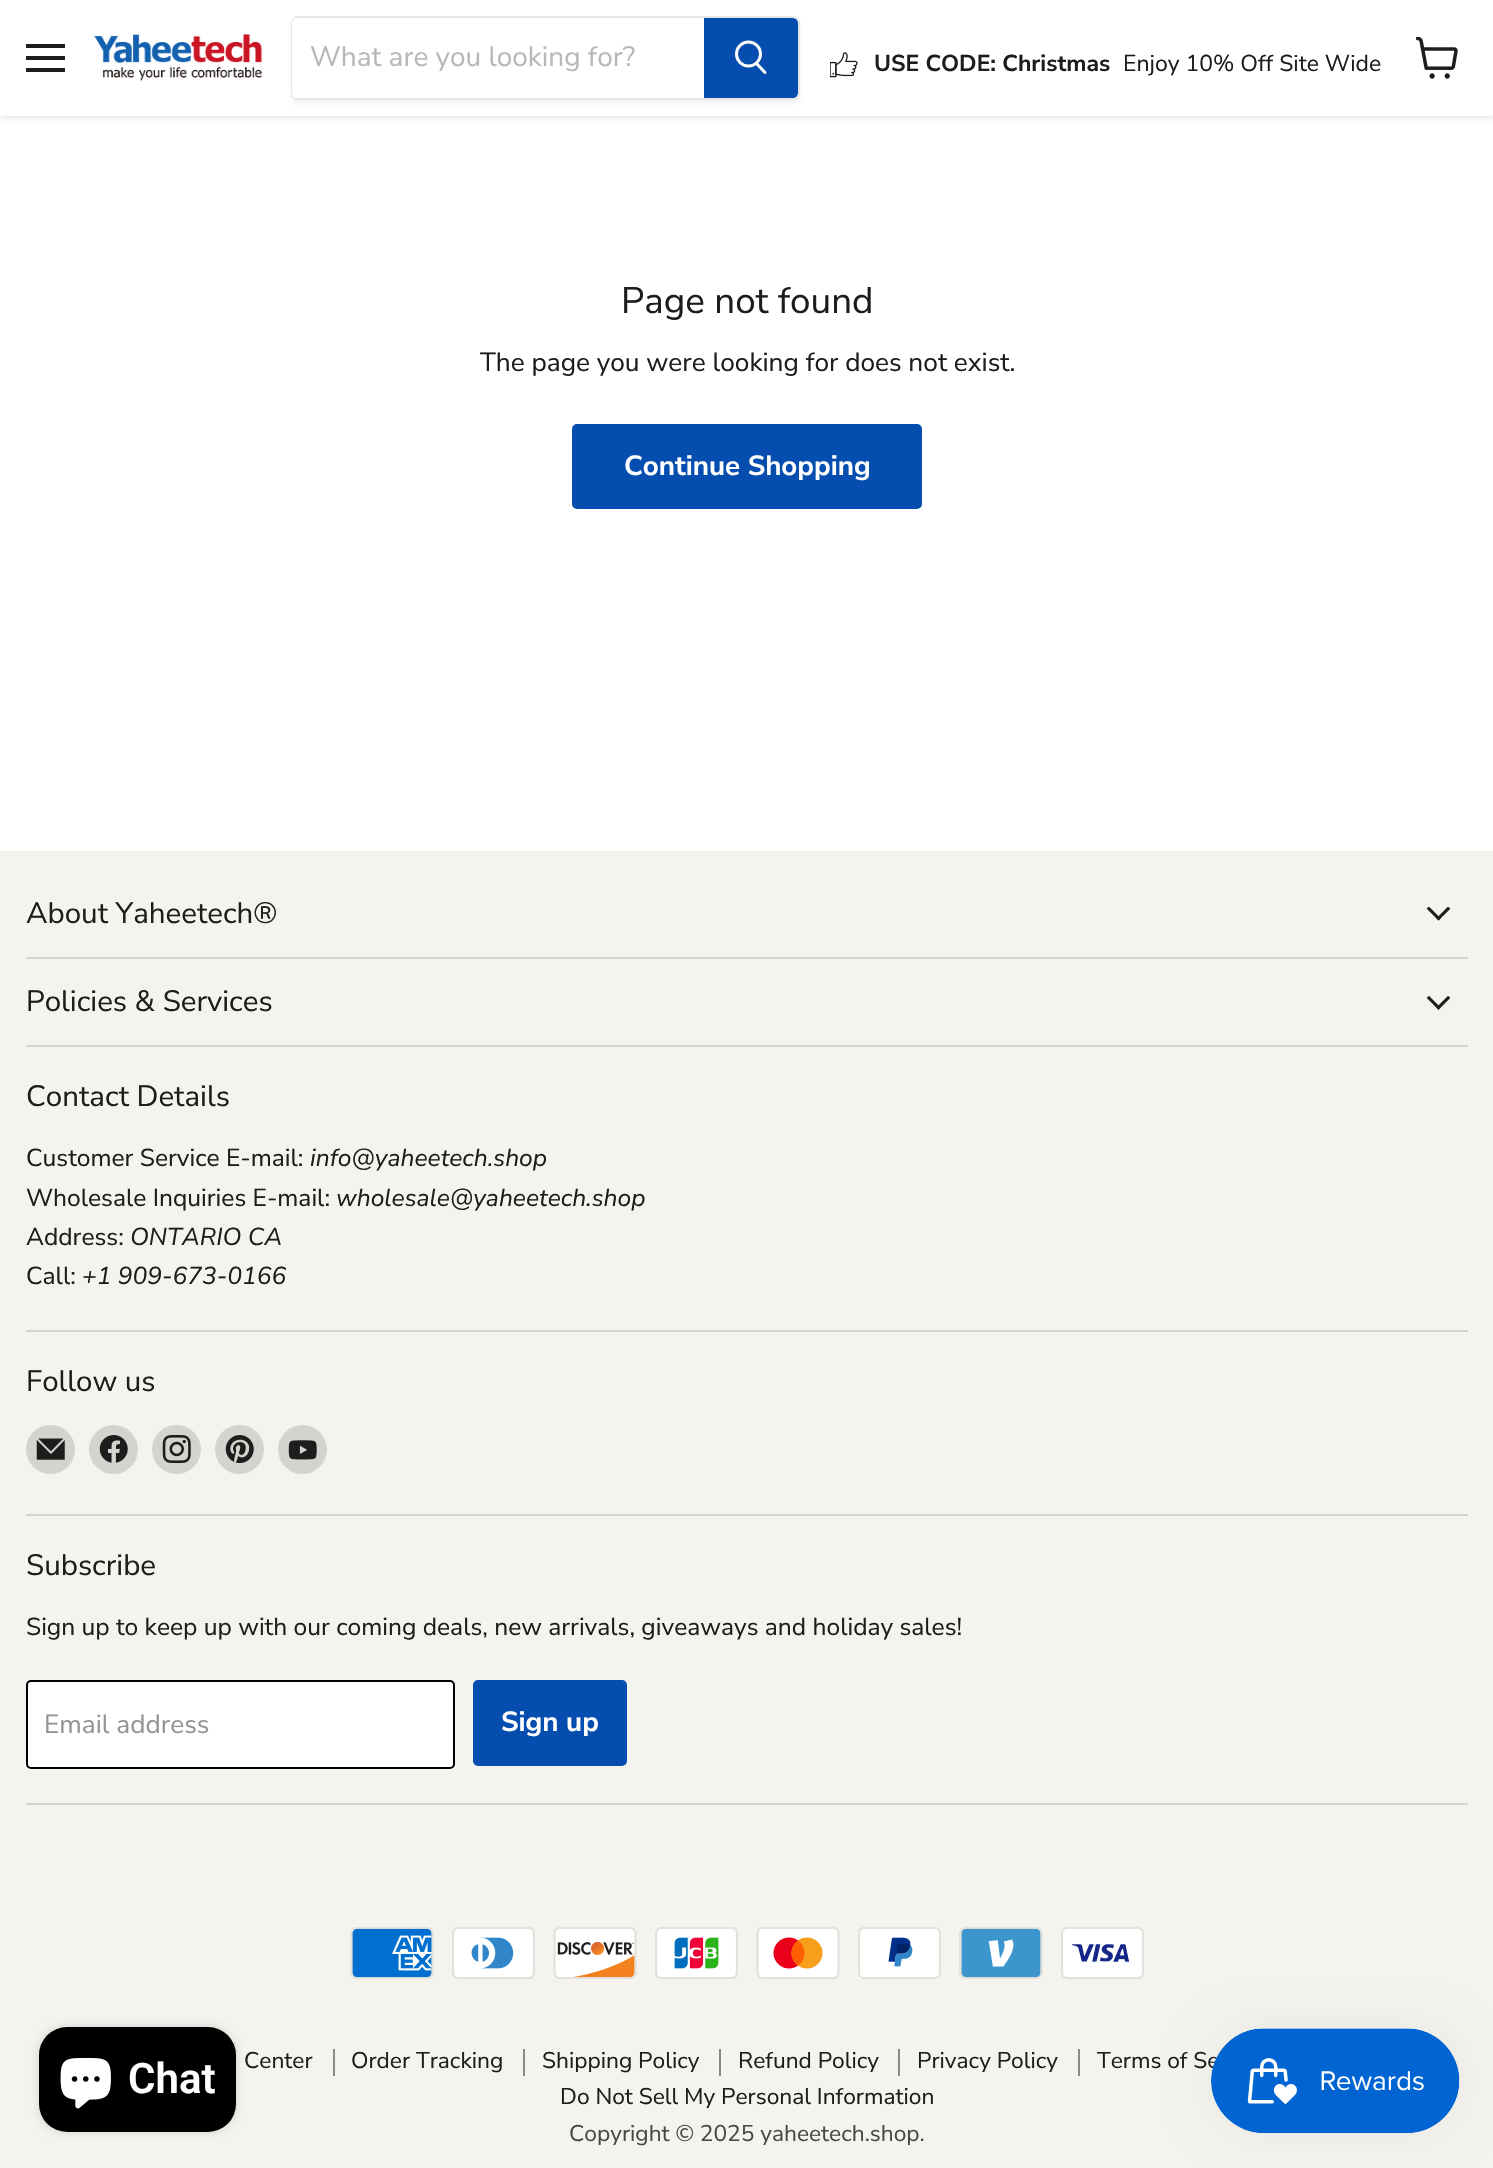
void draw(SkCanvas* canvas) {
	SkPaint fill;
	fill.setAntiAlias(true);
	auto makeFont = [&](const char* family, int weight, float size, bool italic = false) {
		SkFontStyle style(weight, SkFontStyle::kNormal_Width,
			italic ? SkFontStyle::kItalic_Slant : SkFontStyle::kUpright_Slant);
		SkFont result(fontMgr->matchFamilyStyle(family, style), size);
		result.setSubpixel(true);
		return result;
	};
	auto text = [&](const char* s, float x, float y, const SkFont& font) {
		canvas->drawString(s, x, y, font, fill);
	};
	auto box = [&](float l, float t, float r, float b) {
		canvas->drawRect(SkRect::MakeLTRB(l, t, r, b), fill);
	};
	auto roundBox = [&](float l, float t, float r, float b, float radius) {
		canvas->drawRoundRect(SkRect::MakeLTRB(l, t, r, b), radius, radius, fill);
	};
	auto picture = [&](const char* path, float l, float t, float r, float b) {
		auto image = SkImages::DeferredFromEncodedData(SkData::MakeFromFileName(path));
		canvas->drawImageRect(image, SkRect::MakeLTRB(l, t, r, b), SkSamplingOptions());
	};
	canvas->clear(0xFFFFFFFF);
	fill.setColor(0x40808080);
	fill.setMaskFilter(SkMaskFilter::MakeBlur(kNormal_SkBlurStyle, 3.5f));
	canvas->drawRect(SkRect::MakeLTRB(0, 2, 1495, 117), fill);
	fill.setMaskFilter(nullptr);
	fill.setColor(0xFFFFFFFF);
	box(0, 0, 1493, 116);
	fill.setColor(0xFF1D1D1D);
	box(26, 44, 65, 48);
	box(26, 56, 65, 60);
	box(26, 68, 65, 72);
	picture("image0.png", 93, 34, 262, 81);
	canvas->save();
	canvas->clipPath(SkPathBuilder(SkPathFillType::kEvenOdd).moveTo(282, 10).lineTo(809, 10).lineTo(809, 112).lineTo(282, 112).close().moveTo(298, 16).lineTo(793, 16).cubicTo(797, 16, 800, 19, 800, 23).lineTo(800, 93).cubicTo(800, 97, 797, 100, 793, 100).lineTo(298, 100).cubicTo(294, 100, 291, 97, 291, 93).lineTo(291, 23).cubicTo(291, 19, 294, 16, 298, 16).close().detach(), true);
	fill.setColor(0x1C808080);
	fill.setMaskFilter(SkMaskFilter::MakeBlur(kNormal_SkBlurStyle, 2.5f));
	canvas->drawRoundRect(SkRect::MakeLTRB(291, 19, 800, 103), 7, 7, fill);
	fill.setMaskFilter(nullptr);
	canvas->restore();
	fill.setStyle(SkPaint::kStroke_Style);
	fill.setStrokeWidth(2);
	fill.setColor(0x33808080);
	canvas->drawRoundRect(SkRect::MakeLTRB(292, 17, 799, 99), 6, 6, fill);
	fill.setStyle(SkPaint::kFill_Style);
	fill.setColor(0xFFFFFFFF);
	canvas->drawPath(SkPathBuilder().moveTo(297, 18).lineTo(704, 18).lineTo(704, 98).lineTo(297, 98).cubicTo(294, 98, 292, 96, 292, 93).lineTo(292, 23).cubicTo(292, 20, 294, 18, 297, 18).close().detach(), fill);
	fill.setColor(0xFF054DAE);
	canvas->drawPath(SkPathBuilder().moveTo(705, 19).lineTo(793, 19).cubicTo(795, 19, 797, 21, 797, 23).lineTo(797, 93).cubicTo(797, 95, 795, 97, 793, 97).lineTo(705, 97).close().detach(), fill);
	fill.setStyle(SkPaint::kStroke_Style);
	canvas->drawPath(SkPathBuilder().moveTo(705, 19).lineTo(793, 19).cubicTo(795, 19, 797, 21, 797, 23).lineTo(797, 93).cubicTo(797, 95, 795, 97, 793, 97).lineTo(705, 97).close().detach(), fill);
	fill.setStrokeWidth(3);
	fill.setStrokeCap(SkPaint::kRound_Cap);
	fill.setColor(0xFFFFFFFF);
	canvas->drawPath(SkPathBuilder().moveTo(765, 72.5f).lineTo(757, 64).detach(), fill);
	fill.setStrokeCap(SkPaint::kButt_Cap);
	canvas->drawCircle(748.5f, 54, 12, fill);
	picture("image1.png", 830, 52, 858, 78);
	picture("image2.png", 1416, 37, 1458, 79);
	fill.setStyle(SkPaint::kFill_Style);
	fill.setColor(0xFF054DAE);
	canvas->drawRoundRect(SkRect::MakeLTRB(573, 425, 921, 508), 4, 4, fill);
	fill.setStyle(SkPaint::kStroke_Style);
	fill.setStrokeWidth(2);
	canvas->drawRoundRect(SkRect::MakeLTRB(573, 425, 921, 508), 4, 4, fill);
	fill.setStyle(SkPaint::kFill_Style);
	fill.setColor(0xFFF5F3ED);
	box(0, 851, 1493, 2168);
	fill.setColor(0xFFD5D3CE);
	box(26, 957, 1468, 959);
	picture("image3.png", 1426, 907, 1451, 921);
	box(26, 1045, 1468, 1047);
	picture("image4.png", 1426, 996, 1451, 1010);
	box(26, 1330, 1468, 1332);
	box(26, 1514, 1468, 1516);
	canvas->drawCircle(50.5f, 1449.5f, 24.5f, fill);
	picture("image5.png", 36, 1438, 65, 1460);
	canvas->drawCircle(113.5f, 1449.5f, 24.5f, fill);
	picture("image6.png", 99, 1435, 128, 1463);
	canvas->drawCircle(176.5f, 1449.5f, 24.5f, fill);
	picture("image7.png", 162, 1435, 191, 1463);
	canvas->drawCircle(239.5f, 1449.5f, 24.5f, fill);
	picture("image8.png", 225, 1435, 254, 1464);
	canvas->drawCircle(302.5f, 1449.5f, 24.5f, fill);
	picture("image9.png", 288, 1440, 317, 1460);
	box(26, 1803, 1468, 1805);
	fill.setColor(0xFFFFFFFF);
	canvas->drawRoundRect(SkRect::MakeLTRB(27, 1681, 454, 1768), 4, 4, fill);
	fill.setStyle(SkPaint::kStroke_Style);
	fill.setColor(0xFF000000);
	canvas->drawRoundRect(SkRect::MakeLTRB(27, 1681, 454, 1768), 4, 4, fill);
	fill.setStyle(SkPaint::kFill_Style);
	fill.setColor(0xFF054DAE);
	canvas->drawRoundRect(SkRect::MakeLTRB(474, 1681, 626, 1765), 4, 4, fill);
	fill.setStyle(SkPaint::kStroke_Style);
	canvas->drawRoundRect(SkRect::MakeLTRB(474, 1681, 626, 1765), 4, 4, fill);
	picture("image10.png", 350, 1927, 434, 1979);
	picture("image11.png", 452, 1927, 535, 1979);
	picture("image12.png", 553, 1927, 637, 1979);
	picture("image13.png", 655, 1927, 738, 1979);
	picture("image14.png", 756, 1927, 840, 1979);
	picture("image15.png", 858, 1927, 941, 1979);
	picture("image16.png", 959, 1927, 1043, 1979);
	picture("image17.png", 1061, 1927, 1144, 1979);
	fill.setStyle(SkPaint::kFill_Style);
	fill.setColor(0xFF898885);
	box(333, 2049, 335, 2076);
	box(523, 2049, 525, 2076);
	box(719, 2049, 721, 2076);
	box(898, 2049, 900, 2076);
	box(1078, 2049, 1080, 2076);
	fill.setColor(0x0D000000);
	fill.setMaskFilter(SkMaskFilter::MakeBlur(kNormal_SkBlurStyle, 22));
	canvas->drawRoundRect(SkRect::MakeLTRB(1211, 2028, 1460, 2133), 52.5f, 52.5f, fill);
	fill.setMaskFilter(nullptr);
	fill.setColor(0x26000000);
	fill.setMaskFilter(SkMaskFilter::MakeBlur(kNormal_SkBlurStyle, 4.5f));
	canvas->drawRoundRect(SkRect::MakeLTRB(39, 2027, 236, 2132), 28, 28, fill);
	fill.setMaskFilter(nullptr);
	fill.setColor(0xFF000000);
	roundBox(39, 2027, 236, 2132, 28);
	picture("image19.png", 60, 2058, 111, 2109);
	auto font1 = makeFont("Nunito Sans", 400, 28);
	fill.setColor(0xFFB8B8B8);
	text("What are you looking for?", 310, 66, font1);
	auto font2 = makeFont("Nunito Sans", 700, 23);
	fill.setColor(0xFF1D1D1D);
	text("USE CODE: Christmas", 874, 71, font2);
	auto font3 = makeFont("Nunito Sans", 400, 23);
	text("Enjoy 10% Off Site Wide", 1123, 71, font3);
	auto font4 = makeFont("Nunito Sans", 400, 36.75f);
	text("Page not found", 621, 313, font4);
	auto font5 = makeFont("Nunito Sans", 400, 26.25f);
	text("The page you were looking for does not exist.", 480, 371, font5);
	auto font6 = makeFont("Nunito Sans", 700, 27.75f);
	fill.setColor(0xFFFFFFFF);
	text("Continue Shopping", 624, 475, font6);
	auto font7 = makeFont("Nunito Sans", 400, 29.5f);
	fill.setColor(0xFF1D1D1D);
	text("About Yaheetech®", 26, 923, font7);
	text("Policies & Services", 26, 1011, font7);
	text("Contact Details", 26, 1106, font7);
	auto font8 = makeFont("Nunito Sans", 400, 24.6f);
	text("Customer Service E-mail:", 26, 1166, font8);
	auto font9 = makeFont("Nunito Sans", 400, 24.6f, true);
	text("info@yaheetech.shop", 310, 1166, font9);
	text("Wholesale Inquiries E-mail:", 26, 1206, font8);
	text("wholesale@yaheetech.shop", 336, 1206, font9);
	text("Address:", 26, 1245, font8);
	text("ONTARIO CA", 130, 1245, font9);
	text("Call:", 26, 1284, font8);
	text("+1 909-673-0166", 82, 1284, font9);
	text("Follow us", 26, 1391, font7);
	text("Subscribe", 26, 1575, font7);
	text("Sign up to keep up with our coming deals, new arrivals, giveaways and holiday sales!", 26, 1635, font8);
	fill.setColor(0xFF949494);
	text("Email address", 44, 1733, font5);
	fill.setColor(0xFFFFFFFF);
	text("Sign up", 501, 1731, font6);
	auto font10 = makeFont("Nunito Sans", 400, 22.75f);
	fill.setColor(0xFF1D1D1D);
	text("Center", 244, 2068, font10);
	text("Order Tracking", 351, 2068, font10);
	text("Shipping Policy", 542, 2068, font10);
	text("Refund Policy", 738, 2068, font10);
	text("Privacy Policy", 917, 2068, font10);
	text("Terms of Se", 1097, 2068, font10);
	text("Do Not Sell My Personal Information", 560, 2104, font10);
	fill.setColor(0xFF484847);
	text("Copyright © 2025 yaheetech.shop.", 569, 2141, font10);
	picture("image18.png", 1211, 2028, 1460, 2133);
	auto font11 = makeFont("Roboto", 600, 42);
	fill.setColor(0xFFFFFFFF);
	text("Chat", 128, 2093, font11);
}
